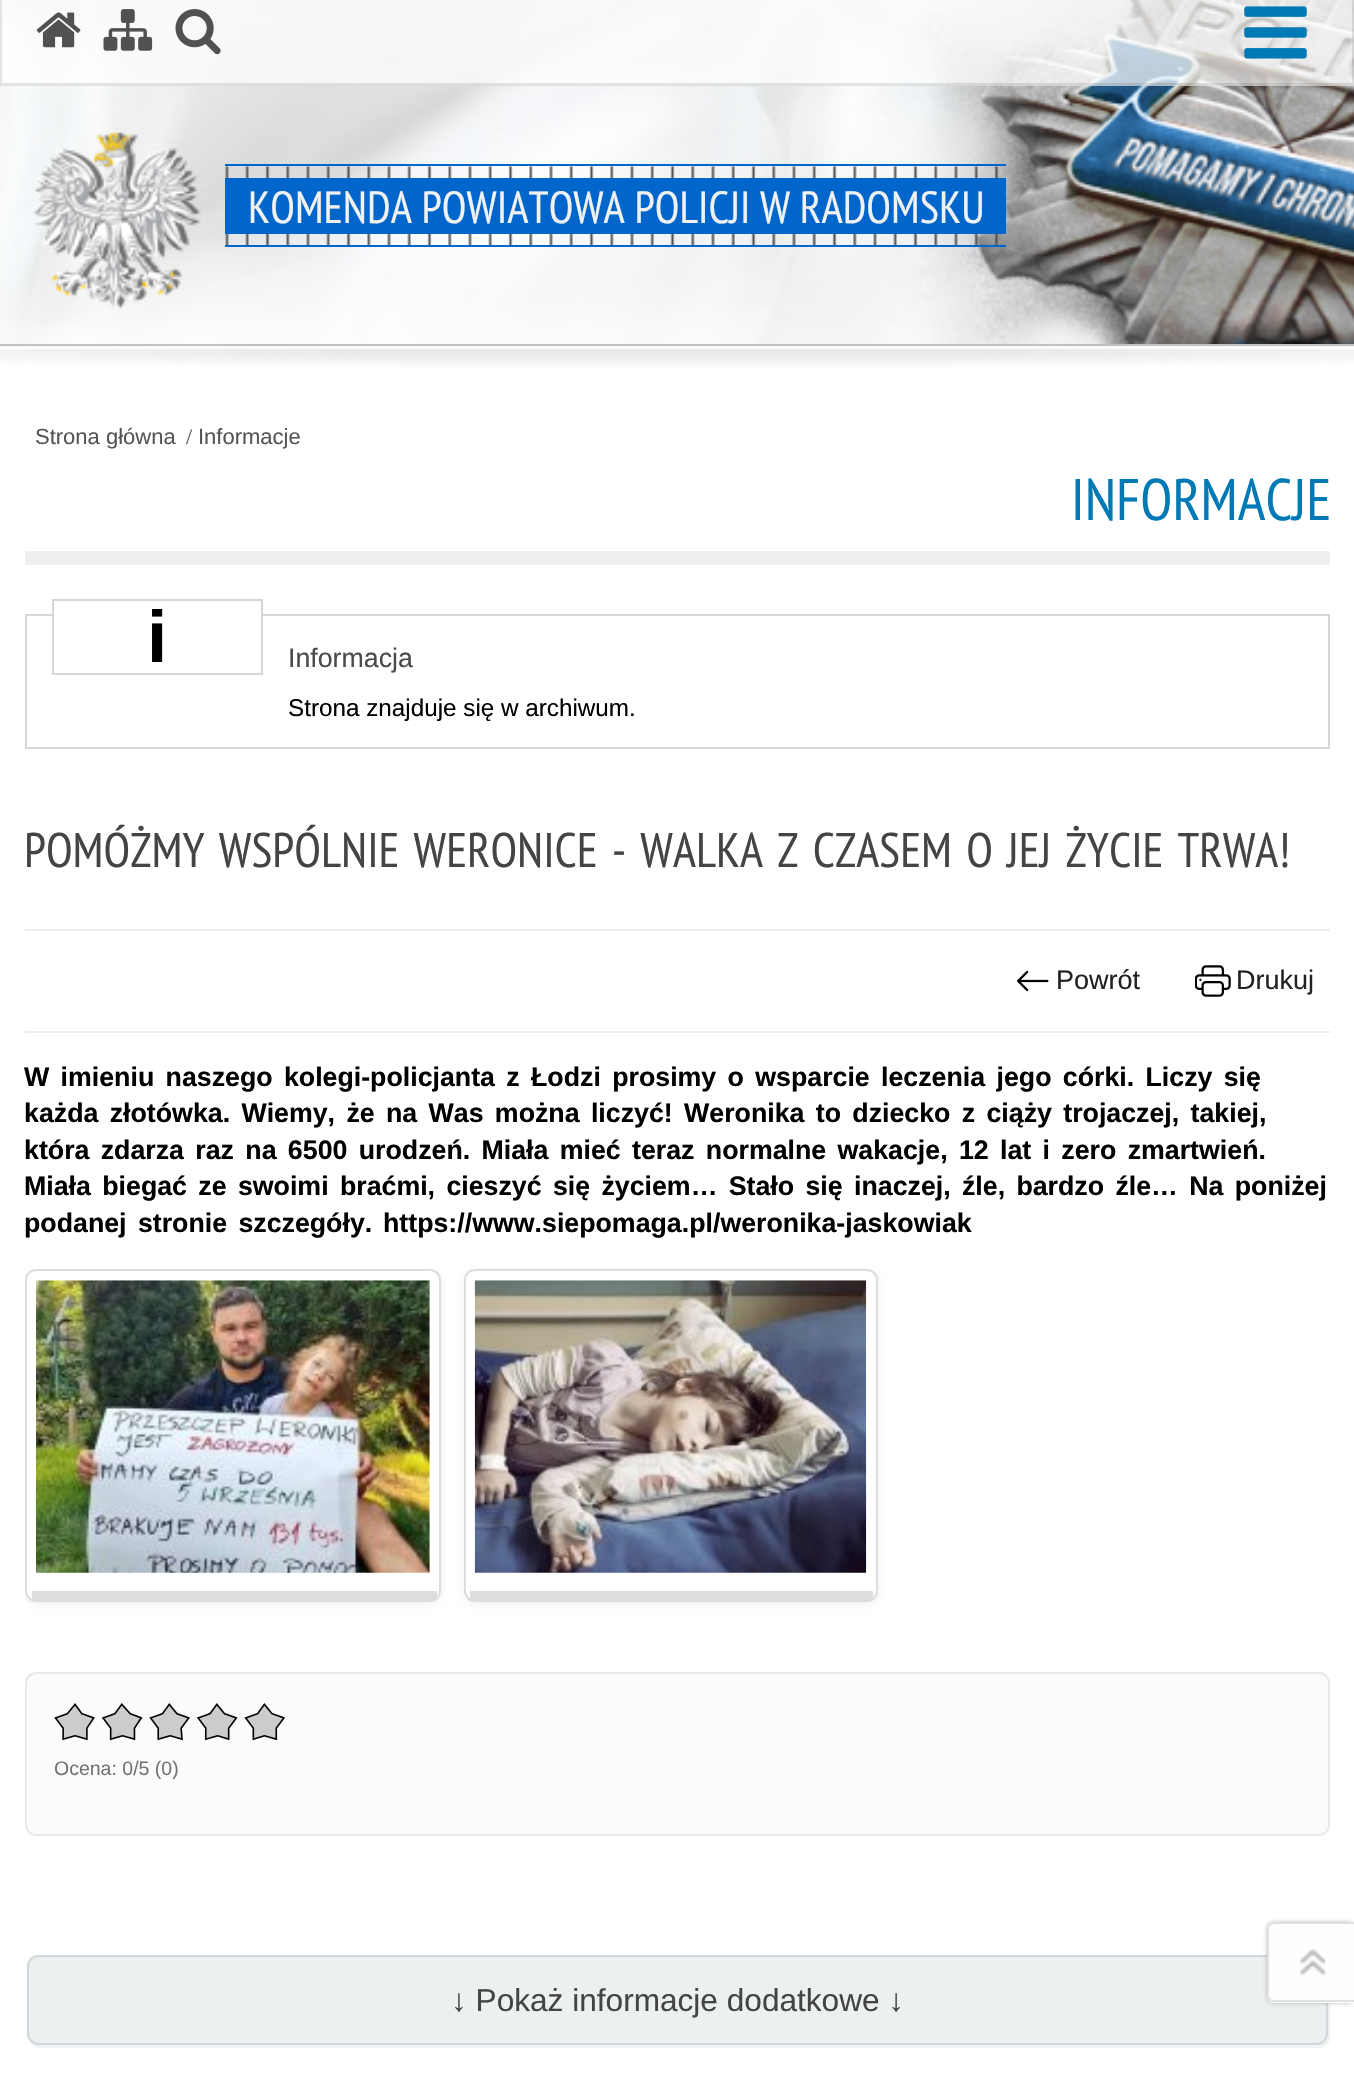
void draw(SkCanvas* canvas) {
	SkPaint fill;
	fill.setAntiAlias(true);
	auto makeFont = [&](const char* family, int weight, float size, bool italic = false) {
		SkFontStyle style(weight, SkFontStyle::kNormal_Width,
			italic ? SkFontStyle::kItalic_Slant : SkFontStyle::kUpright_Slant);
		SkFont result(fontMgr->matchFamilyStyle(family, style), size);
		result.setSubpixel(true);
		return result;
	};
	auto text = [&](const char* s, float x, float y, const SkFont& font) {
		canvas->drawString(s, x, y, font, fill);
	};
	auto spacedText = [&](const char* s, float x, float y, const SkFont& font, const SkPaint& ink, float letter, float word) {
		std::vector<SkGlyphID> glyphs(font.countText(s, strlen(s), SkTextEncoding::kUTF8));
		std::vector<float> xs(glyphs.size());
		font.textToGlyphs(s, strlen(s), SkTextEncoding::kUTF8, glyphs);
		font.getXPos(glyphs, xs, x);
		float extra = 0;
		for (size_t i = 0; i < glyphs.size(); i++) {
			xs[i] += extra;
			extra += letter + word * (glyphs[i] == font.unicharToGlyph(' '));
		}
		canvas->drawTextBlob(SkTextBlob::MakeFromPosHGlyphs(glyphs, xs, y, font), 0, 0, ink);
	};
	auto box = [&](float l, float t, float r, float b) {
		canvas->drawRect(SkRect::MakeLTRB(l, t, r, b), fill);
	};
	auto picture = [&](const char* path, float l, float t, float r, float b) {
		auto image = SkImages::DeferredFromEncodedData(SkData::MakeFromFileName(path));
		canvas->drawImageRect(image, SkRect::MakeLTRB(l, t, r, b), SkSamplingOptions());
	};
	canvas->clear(0xFFFFFFFF);
	picture("image0.png", 0, 0, 1354, 347);
	picture("image1.png", 0, 348, 1354, 368);
	picture("image2.png", 0, 0, 1354, 344);
	fill.setColor(0xFFC1C1C1);
	box(0, 344, 1354, 346);
	fill.setColor(0xB3FFFFFF);
	box(0, 0, 1354, 86);
	fill.setColor(0x1A000000);
	canvas->drawPath(SkPathBuilder().moveTo(1354, -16).lineTo(1354, 86).lineTo(1352, 83).lineTo(1352, -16).close().detach(), fill);
	canvas->drawPath(SkPathBuilder().moveTo(1354, 86).lineTo(0, 86).lineTo(2, 83).lineTo(1352, 83).close().detach(), fill);
	canvas->drawPath(SkPathBuilder().moveTo(0, 86).lineTo(0, -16).lineTo(2, -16).lineTo(2, 83).close().detach(), fill);
	picture("image3.png", 36, 12, 81, 48);
	picture("image4.png", 103, 9, 153, 51);
	picture("image5.png", 175, 9, 221, 55);
	picture("image6.png", 1244, 6, 1307, 59);
	picture("image7.png", 225, 166, 999, 245);
	fill.setColor(0xFF0066CC);
	box(225, 164, 1006, 166);
	box(225, 245, 1006, 247);
	picture("image8.png", 33, 132, 201, 309);
	box(225, 178, 1006, 234);
	fill.setColor(0xFFEFEFEF);
	box(25, 551, 1330, 565);
	fill.setStyle(SkPaint::kStroke_Style);
	fill.setStrokeWidth(2);
	fill.setColor(0xFFD6D6D6);
	canvas->drawRect(SkRect::MakeLTRB(26, 615, 1329, 748), fill);
	fill.setStyle(SkPaint::kFill_Style);
	fill.setColor(0xFFFFFFFF);
	box(54, 614, 261, 616);
	fill.setStyle(SkPaint::kStroke_Style);
	fill.setColor(0xFFD6D6D6);
	canvas->drawRect(SkRect::MakeLTRB(53, 600, 262, 674), fill);
	fill.setStyle(SkPaint::kFill_Style);
	fill.setColor(0xFFEEEEEE);
	box(25, 929, 1330, 931);
	box(25, 1031, 1330, 1033);
	picture("image9.png", 1017, 970, 1049, 992);
	picture("image10.png", 1195, 965, 1231, 997);
	canvas->save();
	canvas->clipRect(SkRect::MakeLTRB(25, 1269, 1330, 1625));
	canvas->clipPath(SkPathBuilder(SkPathFillType::kEvenOdd).moveTo(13, 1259).lineTo(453, 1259).lineTo(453, 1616).lineTo(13, 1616).close().moveTo(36, 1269).lineTo(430, 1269).cubicTo(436, 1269, 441, 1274, 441, 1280).lineTo(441, 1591).cubicTo(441, 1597, 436, 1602, 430, 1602).lineTo(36, 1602).cubicTo(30, 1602, 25, 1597, 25, 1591).lineTo(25, 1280).cubicTo(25, 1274, 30, 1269, 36, 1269).close().detach(), true);
	fill.setColor(0x0F000000);
	fill.setMaskFilter(SkMaskFilter::MakeBlur(kNormal_SkBlurStyle, 3.5f));
	canvas->drawRoundRect(SkRect::MakeLTRB(25, 1271, 441, 1604), 11, 11, fill);
	fill.setMaskFilter(nullptr);
	canvas->restore();
	fill.setStyle(SkPaint::kStroke_Style);
	fill.setColor(0xFFDDDDDD);
	canvas->drawRoundRect(SkRect::MakeLTRB(26, 1270, 440, 1601), 10, 10, fill);
	fill.setStyle(SkPaint::kFill_Style);
	box(32, 1591, 437, 1600);
	picture("image11.png", 36, 1280, 430, 1573);
	canvas->save();
	canvas->clipPath(SkPathBuilder(SkPathFillType::kEvenOdd).moveTo(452, 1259).lineTo(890, 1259).lineTo(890, 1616).lineTo(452, 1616).close().moveTo(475, 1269).lineTo(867, 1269).cubicTo(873, 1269, 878, 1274, 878, 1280).lineTo(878, 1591).cubicTo(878, 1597, 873, 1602, 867, 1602).lineTo(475, 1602).cubicTo(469, 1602, 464, 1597, 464, 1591).lineTo(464, 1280).cubicTo(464, 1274, 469, 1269, 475, 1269).close().detach(), true);
	fill.setColor(0x0F000000);
	fill.setMaskFilter(SkMaskFilter::MakeBlur(kNormal_SkBlurStyle, 3.5f));
	canvas->drawRoundRect(SkRect::MakeLTRB(464, 1271, 878, 1604), 11, 11, fill);
	fill.setMaskFilter(nullptr);
	canvas->restore();
	fill.setStyle(SkPaint::kStroke_Style);
	fill.setColor(0xFFDDDDDD);
	canvas->drawRoundRect(SkRect::MakeLTRB(465, 1270, 877, 1601), 10, 10, fill);
	fill.setStyle(SkPaint::kFill_Style);
	box(470, 1591, 873, 1600);
	picture("image12.png", 474, 1280, 867, 1573);
	fill.setColor(0xFFFBFBFB);
	canvas->drawRoundRect(SkRect::MakeLTRB(26, 1673, 1329, 1835), 10, 10, fill);
	fill.setStyle(SkPaint::kStroke_Style);
	fill.setColor(0xFFE9E9E9);
	canvas->drawRoundRect(SkRect::MakeLTRB(26, 1673, 1329, 1835), 10, 10, fill);
	fill.setStyle(SkPaint::kFill_Style);
	fill.setColor(0xFFCCCCCC);
	box(55, 1702, 284, 1740);
	picture("image13.png", 54, 1701, 302, 1757);
	fill.setColor(0xFFF2F2F2);
	canvas->drawPath(SkPathBuilder().moveTo(30, 2042).cubicTo(32, 2045, 36, 2048, 40, 2048).lineTo(1319, 2048).cubicTo(1325, 2048, 1330, 2043, 1330, 2037).lineTo(1330, 1969).cubicTo(1330, 1965, 1328, 1962, 1326, 1960).cubicTo(1327, 1962, 1328, 1964, 1328, 1966).lineTo(1328, 2034).cubicTo(1328, 2040, 1322, 2045, 1316, 2045).lineTo(38, 2045).cubicTo(35, 2045, 32, 2044, 30, 2042).close().detach(), fill);
	fill.setColor(0xFFECF0F1);
	canvas->drawRoundRect(SkRect::MakeLTRB(28, 1956, 1327, 2044), 10, 10, fill);
	fill.setStyle(SkPaint::kStroke_Style);
	fill.setColor(0xFFCFD9DB);
	canvas->drawRoundRect(SkRect::MakeLTRB(28, 1956, 1327, 2044), 10, 10, fill);
	fill.setStyle(SkPaint::kFill_Style);
	fill.setColor(0x40000000);
	fill.setMaskFilter(SkMaskFilter::MakeBlur(kNormal_SkBlurStyle, 2));
	canvas->drawRoundRect(SkRect::MakeLTRB(1267, 1922, 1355, 2003), 7, 7, fill);
	fill.setMaskFilter(nullptr);
	fill.setColor(0xFFFEFEFE);
	canvas->drawPath(SkPathBuilder().moveTo(1274, 1922).lineTo(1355, 1922).lineTo(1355, 2003).lineTo(1274, 2003).cubicTo(1270, 2003, 1267, 2000, 1267, 1996).lineTo(1267, 1929).cubicTo(1267, 1925, 1270, 1922, 1274, 1922).close().detach(), fill);
	fill.setColor(0xFFE1E1E1);
	canvas->drawPath(SkPathBuilder(SkPathFillType::kEvenOdd).moveTo(1274, 1922).lineTo(1354, 1922).lineTo(1354, 2002).lineTo(1274, 2002).cubicTo(1270, 2002, 1267, 1999, 1267, 1996).lineTo(1267, 1928).cubicTo(1267, 1925, 1270, 1922, 1274, 1922).close().moveTo(1274, 1924).lineTo(1354, 1924).lineTo(1354, 2000).lineTo(1274, 2000).cubicTo(1271, 2000, 1269, 1998, 1269, 1996).lineTo(1269, 1928).cubicTo(1269, 1926, 1271, 1924, 1274, 1924).close().detach(), fill);
	picture("image14.png", 1300, 1948, 1326, 1976);
	auto font1 = makeFont("PT Sans Narrow", 400, 45);
	fill.setColor(0xFFF1F1F1);
	text("KOMENDA POWIATOWA POLICJI W RADOMSKU", 248, 223, font1);
	auto font2 = makeFont("Liberation Sans", 400, 22);
	fill.setColor(0xFF555555);
	text("Strona główna", 35, 444, font2);
	auto font3 = makeFont("Liberation Serif", 400, 22);
	text("/", 186, 444, font3);
	text("Informacje", 198, 444, font2);
	auto font4 = makeFont("PT Sans Narrow", 400, 58.5f);
	fill.setColor(0xFF0079B5);
	text("INFORMACJE", 1071, 520, font4);
	auto font5 = makeFont("Liberation Sans", 700, 73);
	fill.setColor(0xFF000000);
	text("i", 147, 662, font5);
	auto font6 = makeFont("Liberation Sans", 400, 26.75f);
	fill.setColor(0xFF4A4A4A);
	text("Informacja", 288, 667, font6);
	auto font7 = makeFont("Liberation Sans", 400, 24.25f);
	fill.setColor(0xFF000000);
	text("Strona znajduje się w archiwum.", 288, 716, font7);
	auto font8 = makeFont("PT Sans Narrow", 400, 48.6f);
	fill.setColor(0xFF444444);
	spacedText("POMÓŻMY WSPÓLNIE WERONICE - WALKA Z CZASEM O JEJ ŻYCIE TRWA!", 24, 867, font8, fill, 0, 3.9f);
	auto font9 = makeFont("Liberation Sans", 400, 27);
	fill.setColor(0xFF222222);
	text("Powrót", 1056, 989, font9);
	text("Drukuj", 1236, 989, font9);
	auto font10 = makeFont("Liberation Sans", 700, 26.75f);
	fill.setColor(0xFF000000);
	spacedText("W imieniu naszego kolegi-policjanta z Łodzi prosimy o wsparcie leczenia jego córki. Liczy się", 24, 1086, font10, fill, 0, 3.9f);
	spacedText("każda złotówka. Wiemy, że na Was można liczyć! Weronika to dziecko z ciąży trojaczej, takiej,", 24, 1122, font10, fill, 0, 3.9f);
	spacedText("która zdarza raz na 6500 urodzeń. Miała mieć teraz normalne wakacje, 12 lat i zero zmartwień.", 24, 1159, font10, fill, 0, 3.9f);
	spacedText("Miała biegać ze swoimi braćmi, cieszyć się życiem… Stało się inaczej, źle, bardzo źle… Na poniżej", 24, 1195, font10, fill, 0, 3.9f);
	spacedText("podanej stronie szczegóły.", 24, 1232, font10, fill, 0, 3.9f);
	text("https://www.siepomaga.pl/weronika-jaskowiak", 383, 1232, font10);
	auto font11 = makeFont("Liberation Sans", 400, 19.5f);
	fill.setColor(0xFF737373);
	text("Ocena: 0/5 (0)", 54, 1775, font11);
	auto font12 = makeFont("Liberation Sans", 400, 31.6f);
	fill.setColor(0xFF444444);
	text("↓ Pokaż informacje dodatkowe ↓", 451, 2011, font12);
}
